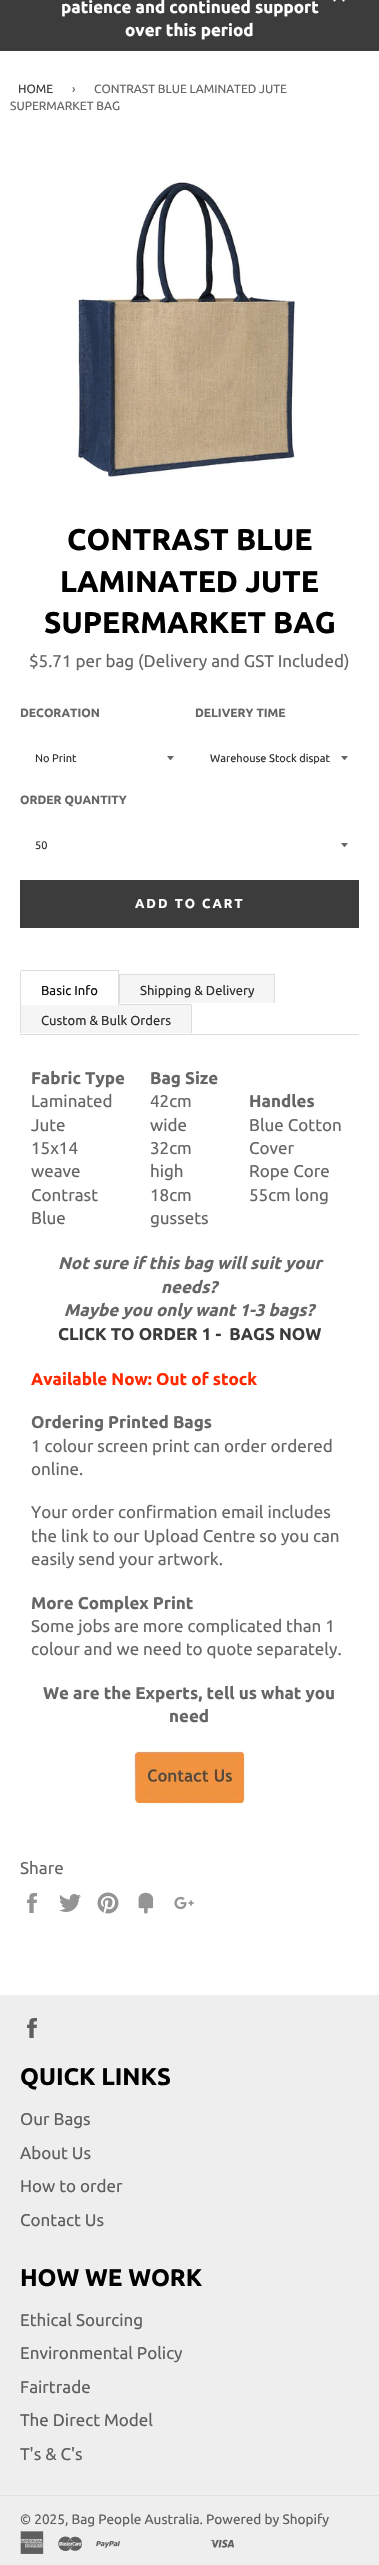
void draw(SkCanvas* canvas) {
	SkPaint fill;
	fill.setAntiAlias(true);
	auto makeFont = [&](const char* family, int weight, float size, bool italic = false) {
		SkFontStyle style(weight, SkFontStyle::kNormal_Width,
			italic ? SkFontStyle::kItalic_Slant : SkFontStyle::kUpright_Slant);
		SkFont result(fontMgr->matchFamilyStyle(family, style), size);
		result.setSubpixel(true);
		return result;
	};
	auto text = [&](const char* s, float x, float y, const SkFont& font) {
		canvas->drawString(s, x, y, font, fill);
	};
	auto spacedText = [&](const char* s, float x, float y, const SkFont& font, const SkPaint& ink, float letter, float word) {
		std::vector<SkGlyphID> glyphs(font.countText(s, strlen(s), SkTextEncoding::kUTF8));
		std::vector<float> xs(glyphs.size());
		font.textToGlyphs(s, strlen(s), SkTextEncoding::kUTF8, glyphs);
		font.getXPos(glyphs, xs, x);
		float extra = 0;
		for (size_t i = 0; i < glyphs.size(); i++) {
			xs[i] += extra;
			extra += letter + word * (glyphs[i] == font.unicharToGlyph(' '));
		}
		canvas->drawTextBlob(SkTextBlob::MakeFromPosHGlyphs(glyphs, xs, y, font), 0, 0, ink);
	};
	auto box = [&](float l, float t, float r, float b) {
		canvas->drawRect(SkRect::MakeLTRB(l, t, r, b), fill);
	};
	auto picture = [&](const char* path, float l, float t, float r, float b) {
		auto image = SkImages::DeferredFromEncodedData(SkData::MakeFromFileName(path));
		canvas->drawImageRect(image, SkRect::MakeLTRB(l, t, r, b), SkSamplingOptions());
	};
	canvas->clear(0xFFFFFFFF);
	fill.setColor(0xFF3C3C3C);
	box(0, 0, 379, 51);
	picture("image0.png", 333, 0, 345, 2);
	picture("image1.png", 77, 182, 296, 478);
	fill.setColor(0xFF666666);
	canvas->drawPath(SkPathBuilder().moveTo(167, 756).cubicTo(171.5f, 761.5f, 169.5f, 761.5f, 174, 756).close().detach(), fill);
	canvas->drawPath(SkPathBuilder().moveTo(341, 756).cubicTo(345.5f, 761.5f, 343.5f, 761.5f, 348, 756).close().detach(), fill);
	canvas->drawPath(SkPathBuilder().moveTo(341, 843).cubicTo(345.5f, 848.5f, 343.5f, 848.5f, 348, 843).close().detach(), fill);
	fill.setColor(0xFF3C3C3C);
	box(20, 880, 359, 928);
	fill.setColor(0xFFDDDDDD);
	box(20, 1034, 359, 1035);
	fill.setColor(0xFFF5F5F5);
	canvas->drawPath(SkPathBuilder().moveTo(20, 1004).lineTo(190, 1004).cubicTo(191, 1004, 192, 1005, 192, 1006).lineTo(192, 1033).lineTo(20, 1033).close().detach(), fill);
	fill.setColor(0xFFDDDDDD);
	box(20, 1004, 21, 1033);
	fill.setColor(0xFFFFFFFF);
	canvas->drawPath(SkPathBuilder().moveTo(22, 970).lineTo(119, 970).lineTo(119, 1005).lineTo(20, 1005).lineTo(20, 972).cubicTo(20, 971, 21, 970, 22, 970).close().detach(), fill);
	fill.setColor(0xFFDDDDDD);
	box(21, 970, 119, 971);
	box(118, 970, 119, 1005);
	box(20, 971, 21, 1005);
	fill.setColor(0xFFF5F5F5);
	box(120, 975, 274, 1003);
	fill.setColor(0xFFDDDDDD);
	box(119, 974, 275, 975);
	box(274, 974, 275, 1003);
	box(119, 974, 120, 1003);
	box(119, 1004, 191, 1005);
	box(191, 1005, 192, 1033);
	picture("image2.png", 134, 1751, 245, 1804);
	picture("image3.png", 27, 1893, 37, 1913);
	picture("image4.png", 59, 1894, 81, 1912);
	picture("image5.png", 97, 1892, 119, 1914);
	picture("image6.png", 138, 1892, 154, 1914);
	picture("image7.png", 174, 1896, 194, 1910);
	fill.setColor(0xFFEEEEEE);
	box(0, 1995, 379, 2565);
	picture("image8.png", 27, 2018, 37, 2038);
	fill.setColor(0xFFE1E1E1);
	box(0, 2495, 379, 2496);
	picture("image9.png", 20, 2531, 44, 2554);
	picture("image10.png", 58, 2536, 82, 2551);
	picture("image11.png", 96, 2541, 120, 2548);
	picture("image12.png", 210, 2539, 234, 2548);
	auto font1 = makeFont("Ubuntu", 700, 17);
	fill.setColor(0xFFFFFFFF);
	text("patience and continued support", 61, 13, font1);
	text("over this period", 125, 36, font1);
	auto font2 = makeFont("Ubuntu", 400, 12);
	fill.setColor(0xFF3C3C3C);
	text("HOME", 18, 93, font2);
	fill.setColor(0xFF666666);
	text("›", 72, 93, font2);
	text("CONTRAST BLUE LAMINATED JUTE", 94, 93, font2);
	text("SUPERMARKET BAG", 10, 110, font2);
	auto font3 = makeFont("Ubuntu", 700, 30);
	fill.setColor(0xFF000000);
	text("CONTRAST BLUE", 67, 550, font3);
	text("LAMINATED JUTE", 60, 592, font3);
	text("SUPERMARKET BAG", 44, 633, font3);
	auto font4 = makeFont("Ubuntu", 400, 17);
	fill.setColor(0xFF666666);
	text("$5.71 per bag (Delivery and GST Included)", 29, 667, font4);
	auto font5 = makeFont("Ubuntu", 700, 12);
	text("DECORATION", 20, 717, font5);
	auto font6 = makeFont("Ubuntu", 400, 11);
	fill.setColor(0xFF303030);
	text("No Print", 35, 762, font6);
	fill.setColor(0xFF666666);
	text("DELIVERY TIME", 195, 717, font5);
	fill.setColor(0xFF303030);
	text("Warehouse Stock dispat", 210, 762, font6);
	fill.setColor(0xFF666666);
	text("ORDER QUANTITY", 20, 804, font5);
	fill.setColor(0xFF303030);
	text("50", 35, 849, font6);
	auto font7 = makeFont("Ubuntu", 700, 13);
	fill.setColor(0xFFFFFFFF);
	spacedText("ADD TO CART", 135, 908, font7, fill, 2, 0);
	auto font8 = makeFont("Ubuntu", 400, 13);
	fill.setColor(0xFF111111);
	text("Basic Info", 41, 995, font8);
	fill.setColor(0xFF303030);
	text("Shipping & Delivery", 140, 995, font8);
	text("Custom & Bulk Orders", 41, 1025, font8);
	fill.setColor(0xFF666666);
	text("Fabric Type", 31, 1084, font1);
	text("Laminated", 31, 1107, font4);
	text("Jute", 31, 1131, font4);
	text("15x14", 31, 1154, font4);
	text("weave", 31, 1177, font4);
	text("Contrast", 31, 1201, font4);
	text("Blue", 31, 1224, font4);
	text("Bag Size", 150, 1084, font1);
	text("42cm", 150, 1107, font4);
	text("wide", 150, 1131, font4);
	text("32cm", 150, 1154, font4);
	text("high", 150, 1177, font4);
	text("18cm", 150, 1201, font4);
	text("gussets", 150, 1224, font4);
	text("Handles", 249, 1107, font1);
	text("Blue Cotton", 249, 1131, font4);
	text("Cover", 249, 1154, font4);
	text("Rope Core", 249, 1177, font4);
	text("55cm long", 249, 1201, font4);
	auto font9 = makeFont("Ubuntu", 700, 17, true);
	text("Not sure if this bag will suit your", 58, 1269, font9);
	text("needs?", 161, 1293, font9);
	text("Maybe you only want 1-3 bags?", 64, 1316, font9);
	fill.setColor(0xFF3C3C3C);
	text("CLICK TO ORDER 1 -  BAGS NOW", 58, 1340, font1);
	fill.setColor(0xFFFF2A00);
	text("Available Now: Out of stock", 31, 1385, font1);
	fill.setColor(0xFF666666);
	text("Ordering Printed Bags", 31, 1428, font1);
	text("1 colour screen print can order ordered", 31, 1452, font4);
	text("online.", 31, 1475, font4);
	text("Your order confirmation email includes", 31, 1518, font4);
	text("the link to our Upload Centre so you can", 31, 1542, font4);
	text("easily send your artwork.", 31, 1565, font4);
	text("More Complex Print", 31, 1609, font1);
	text("Some jobs are more complicated than 1", 31, 1632, font4);
	text("colour and we need to quote separately.", 31, 1655, font4);
	text("We are the Experts, tell us what you", 43, 1699, font1);
	text("need", 169, 1722, font1);
	text("Share", 20, 1874, font4);
	auto font10 = makeFont("Ubuntu", 700, 24);
	fill.setColor(0xFF000000);
	text("QUICK LINKS", 20, 2085, font10);
	fill.setColor(0xFF5F5F5F);
	text("Our Bags", 20, 2125, font4);
	text("About Us", 20, 2159, font4);
	text("How to order", 20, 2192, font4);
	text("Contact Us", 20, 2226, font4);
	fill.setColor(0xFF000000);
	text("HOW WE WORK", 20, 2286, font10);
	fill.setColor(0xFF5F5F5F);
	text("Ethical Sourcing", 20, 2326, font4);
	text("Environmental Policy", 20, 2359, font4);
	text("Fairtrade", 20, 2393, font4);
	text("The Direct Model", 20, 2426, font4);
	text("T's & C's", 20, 2460, font4);
	auto font11 = makeFont("Ubuntu", 400, 13.6f);
	text("© 2025, Bag People Australia. Powered by Shopify", 20, 2524, font11);
}
